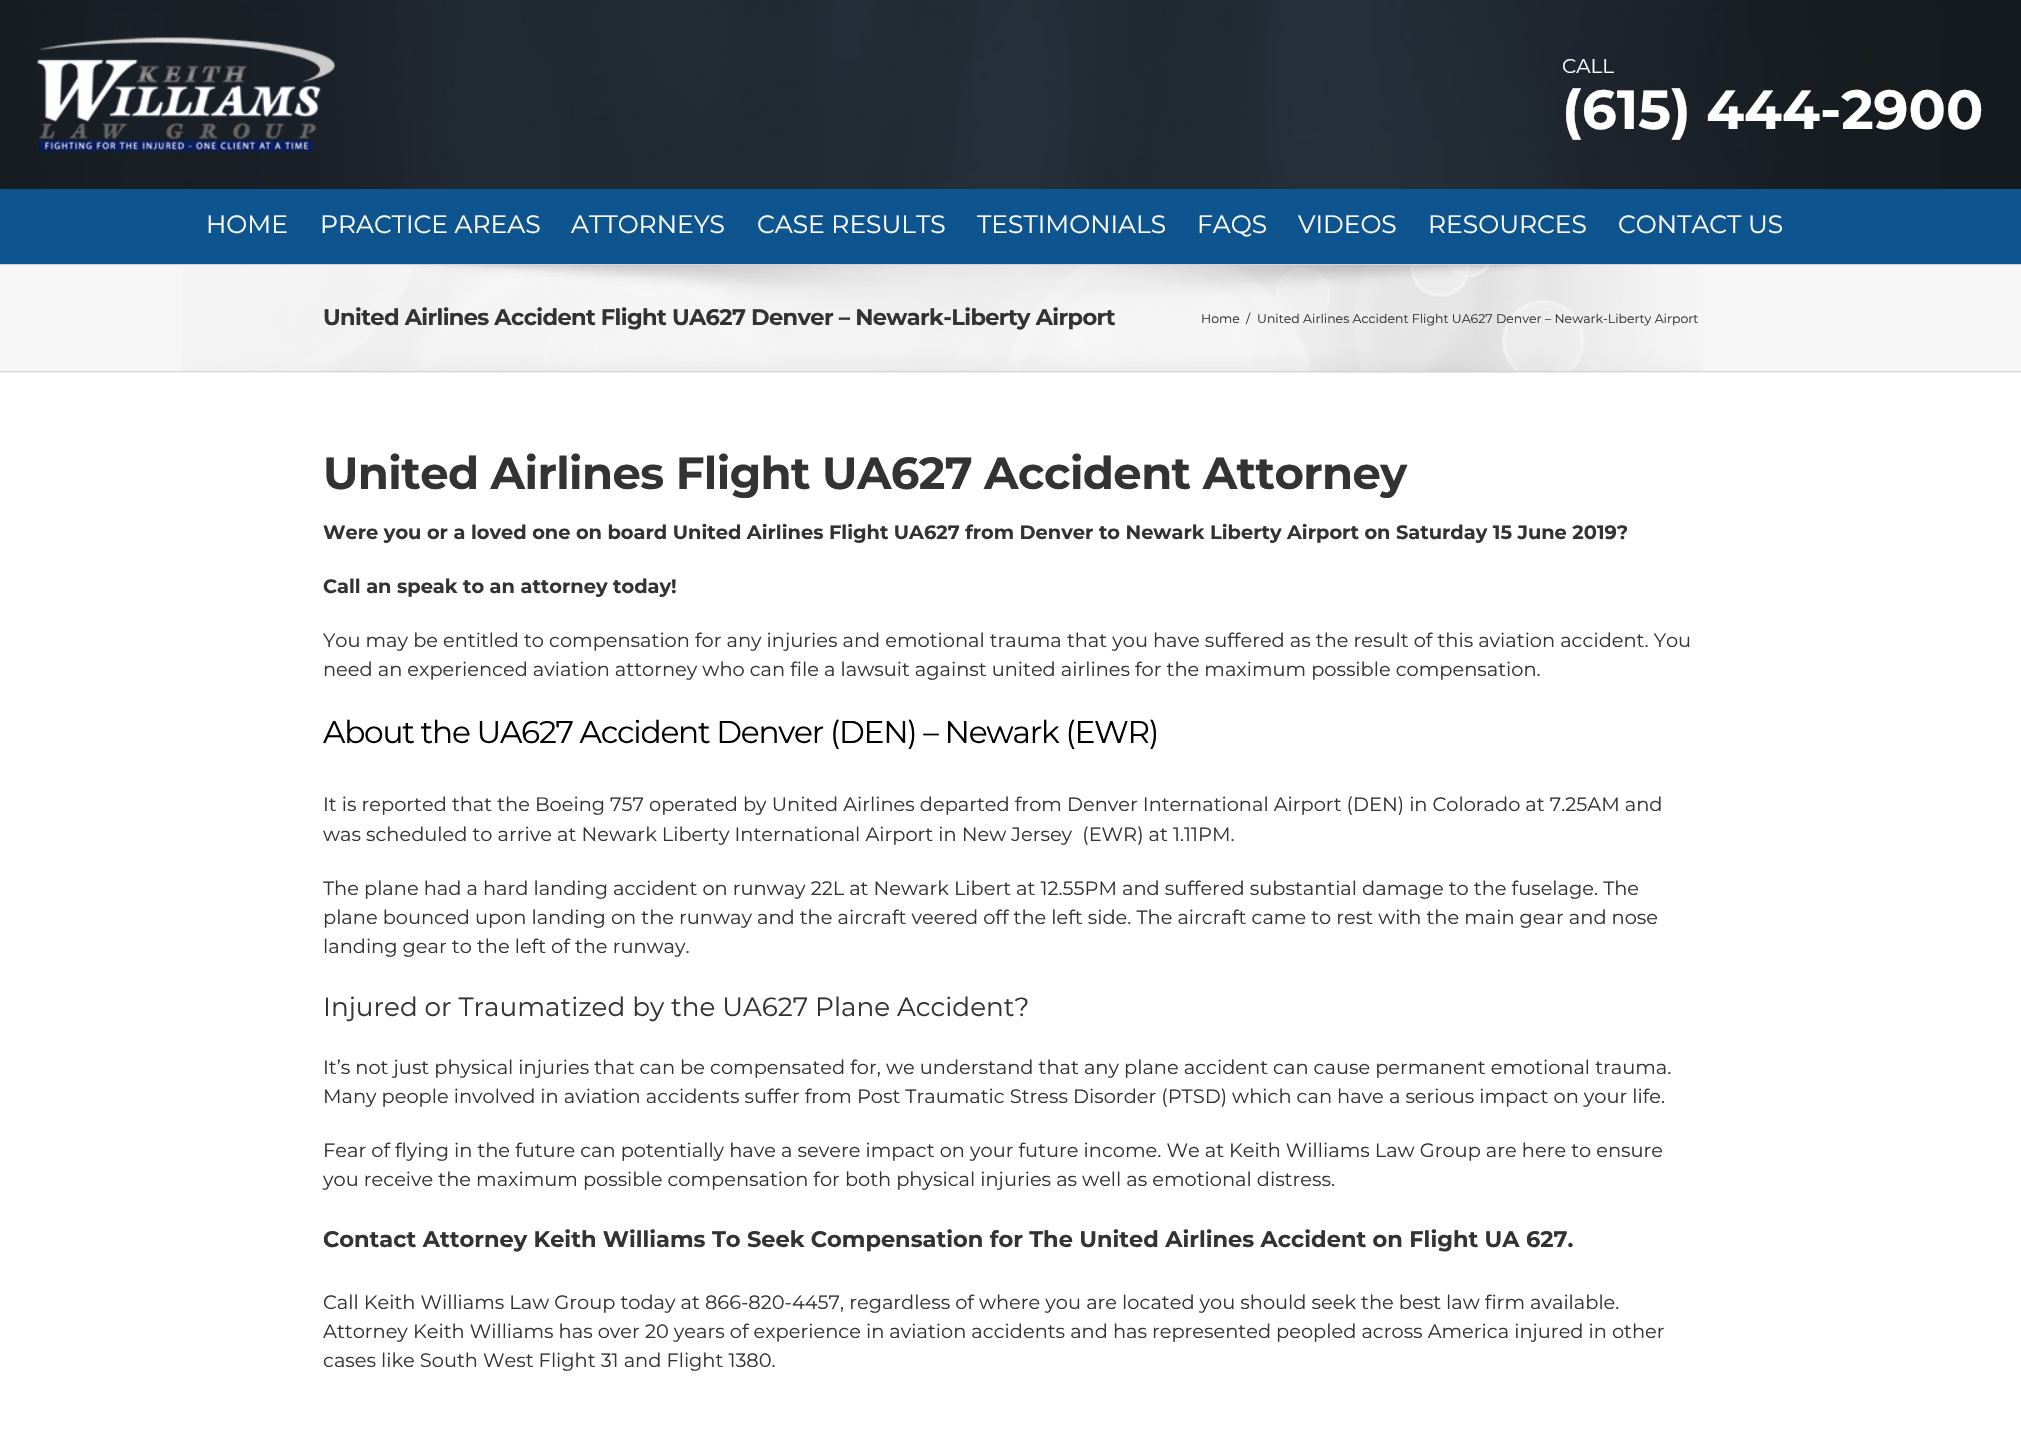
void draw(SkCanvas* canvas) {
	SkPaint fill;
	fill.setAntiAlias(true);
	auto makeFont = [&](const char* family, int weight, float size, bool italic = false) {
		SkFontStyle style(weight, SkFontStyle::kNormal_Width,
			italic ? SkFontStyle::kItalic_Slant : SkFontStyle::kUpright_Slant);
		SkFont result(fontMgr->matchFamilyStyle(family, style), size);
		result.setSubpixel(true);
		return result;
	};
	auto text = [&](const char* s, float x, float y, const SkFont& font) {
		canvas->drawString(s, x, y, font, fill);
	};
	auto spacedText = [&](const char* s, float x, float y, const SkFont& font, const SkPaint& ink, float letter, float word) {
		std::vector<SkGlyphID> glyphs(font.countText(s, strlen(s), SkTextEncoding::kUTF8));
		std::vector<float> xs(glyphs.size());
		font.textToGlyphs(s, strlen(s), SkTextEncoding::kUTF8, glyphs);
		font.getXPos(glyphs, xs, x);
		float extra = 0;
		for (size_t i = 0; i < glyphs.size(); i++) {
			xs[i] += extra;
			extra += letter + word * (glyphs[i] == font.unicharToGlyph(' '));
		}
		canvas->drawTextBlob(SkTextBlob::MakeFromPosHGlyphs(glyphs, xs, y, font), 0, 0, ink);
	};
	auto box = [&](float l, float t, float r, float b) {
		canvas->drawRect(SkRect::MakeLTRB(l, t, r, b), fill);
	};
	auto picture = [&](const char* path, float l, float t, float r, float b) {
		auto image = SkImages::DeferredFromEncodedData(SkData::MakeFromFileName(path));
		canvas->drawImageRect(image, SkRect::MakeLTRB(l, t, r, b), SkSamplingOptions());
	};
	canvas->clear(0xFFFFFFFF);
	fill.setColor(0xFF151A1E);
	box(1943, 0, 2021, 189);
	picture("image0.png", 0, 0, 1943, 189);
	picture("image1.png", 37, 37, 335, 152);
	fill.setColor(0xFF0E5590);
	box(0, 189, 2021, 264);
	fill.setColor(0xFFF6F6F6);
	box(0, 265, 2021, 373);
	picture("image2.png", 181, 265, 1701, 373);
	fill.setColor(0xFFD2D3D4);
	box(0, 264, 2021, 265);
	box(0, 371, 2021, 372);
	auto font1 = makeFont("Montserrat", 400, 20);
	fill.setColor(0xFFFFFFFF);
	text("CALL", 1562, 73, font1);
	auto font2 = makeFont("Montserrat", 700, 55);
	text("(615) 444-2900", 1562, 129, font2);
	auto font3 = makeFont("Montserrat", 400, 25);
	text("HOME", 206, 233, font3);
	text("PRACTICE AREAS", 320, 233, font3);
	text("ATTORNEYS", 571, 233, font3);
	text("CASE RESULTS", 757, 233, font3);
	text("TESTIMONIALS", 977, 233, font3);
	text("FAQS", 1197, 233, font3);
	text("VIDEOS", 1298, 233, font3);
	text("RESOURCES", 1428, 233, font3);
	text("CONTACT US", 1618, 233, font3);
	auto font4 = makeFont("Montserrat", 700, 22.5f);
	fill.setColor(0xFF333333);
	spacedText("United Airlines Accident Flight UA627 Denver – Newark-Liberty Airport", 323, 325, font4, fill, -0.62f, 0);
	auto font5 = makeFont("Montserrat", 400, 12.5f);
	text("Home", 1201, 323, font5);
	text("/", 1246, 323, font5);
	text("United Airlines Accident Flight UA627 Denver – Newark-Liberty Airport", 1257, 323, font5);
	auto font6 = makeFont("Montserrat", 700, 45);
	spacedText("United Airlines Flight UA627 Accident Attorney", 323, 489, font6, fill, -0.62f, 0);
	auto font7 = makeFont("Montserrat", 700, 19.38f);
	text("Were you or a loved one on board United Airlines Flight UA627 from Denver to Newark Liberty Airport on Saturday 15 June 2019?", 323, 539, font7);
	text("Call an speak to an attorney today!", 323, 593, font7);
	auto font8 = makeFont("Montserrat", 400, 19.38f);
	text("You may be entitled to compensation for any injuries and emotional trauma that you have suffered as the result of this aviation accident. You", 323, 647, font8);
	text("need an experienced aviation attorney who can file a lawsuit against united airlines for the maximum possible compensation.", 323, 676, font8);
	auto font9 = makeFont("Montserrat", 400, 31.25f);
	fill.setColor(0xFF000000);
	spacedText("About the UA627 Accident Denver (DEN) – Newark (EWR)", 323, 743, font9, fill, -1.25f, 0);
	fill.setColor(0xFF333333);
	text("It is reported that the Boeing 757 operated by United Airlines departed from Denver International Airport (DEN) in Colorado at 7.25AM and", 323, 811, font8);
	text("was scheduled to arrive at Newark Liberty International Airport in New Jersey  (EWR) at 1.11PM.", 323, 841, font8);
	text("The plane had a hard landing accident on runway 22L at Newark Libert at 12.55PM and suffered substantial damage to the fuselage. The", 323, 895, font8);
	text("plane bounced upon landing on the runway and the aircraft veered off the left side. The aircraft came to rest with the main gear and nose", 323, 924, font8);
	text("landing gear to the left of the runway.", 323, 953, font8);
	auto font10 = makeFont("Montserrat", 400, 26.25f);
	text("Injured or Traumatized by the UA627 Plane Accident?", 323, 1016, font10);
	text("It’s not just physical injuries that can be compensated for, we understand that any plane accident can cause permanent emotional trauma.", 323, 1074, font8);
	text("Many people involved in aviation accidents suffer from Post Traumatic Stress Disorder (PTSD) which can have a serious impact on your life.", 323, 1103, font8);
	text("Fear of flying in the future can potentially have a severe impact on your future income. We at Keith Williams Law Group are here to ensure", 323, 1157, font8);
	text("you receive the maximum possible compensation for both physical injuries as well as emotional distress.", 323, 1186, font8);
	text("Contact Attorney Keith Williams To Seek Compensation for The United Airlines Accident on Flight UA 627.", 323, 1247, font4);
	text("Call Keith Williams Law Group today at 866-820-4457, regardless of where you are located you should seek the best law firm available.", 323, 1309, font8);
	text("Attorney Keith Williams has over 20 years of experience in aviation accidents and has represented peopled across America injured in other", 323, 1338, font8);
	text("cases like South West Flight 31 and Flight 1380.", 323, 1367, font8);
}
